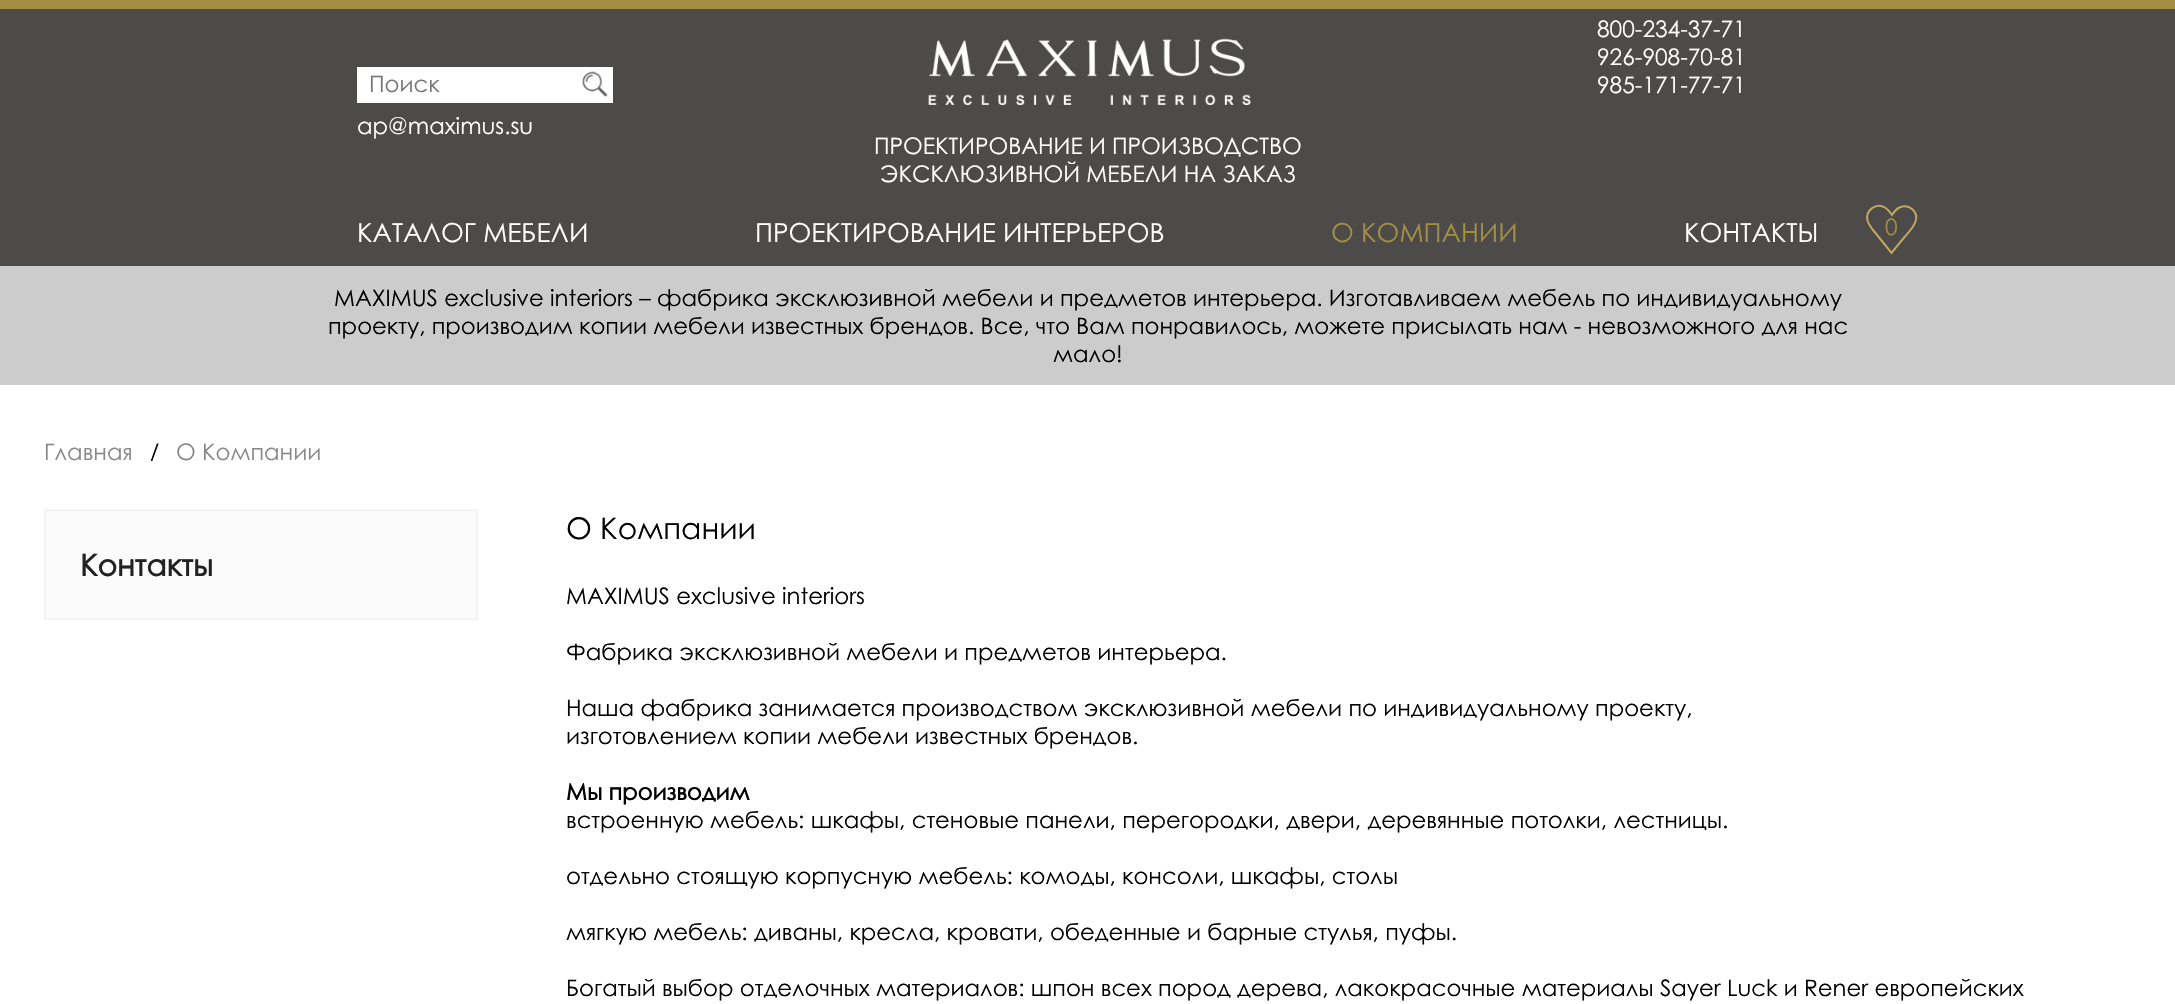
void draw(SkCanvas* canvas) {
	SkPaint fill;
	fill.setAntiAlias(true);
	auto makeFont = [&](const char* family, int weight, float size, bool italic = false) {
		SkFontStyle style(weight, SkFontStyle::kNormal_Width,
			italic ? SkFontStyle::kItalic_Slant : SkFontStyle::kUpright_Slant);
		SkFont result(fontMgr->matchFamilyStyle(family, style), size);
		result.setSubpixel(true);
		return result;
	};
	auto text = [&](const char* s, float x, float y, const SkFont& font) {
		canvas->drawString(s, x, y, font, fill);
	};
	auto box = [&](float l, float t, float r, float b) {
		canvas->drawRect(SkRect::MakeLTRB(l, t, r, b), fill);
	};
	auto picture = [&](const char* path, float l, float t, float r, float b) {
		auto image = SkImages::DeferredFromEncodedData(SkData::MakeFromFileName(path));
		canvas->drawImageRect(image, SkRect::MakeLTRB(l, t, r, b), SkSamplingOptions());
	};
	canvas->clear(0xFFFFFFFF);
	fill.setColor(0xFF4C4B49);
	box(0, 9, 2175, 266);
	fill.setColor(0xFFA38E44);
	box(0, 0, 2175, 9);
	fill.setColor(0xFFFFFFFF);
	box(357, 67, 613, 103);
	picture("image0.png", 582, 71, 608, 97);
	picture("image1.png", 928, 38, 1251, 105);
	fill.setStyle(SkPaint::kStroke_Style);
	fill.setStrokeWidth(2);
	fill.setColor(0xFFC2A661);
	canvas->drawPath(SkPathBuilder().moveTo(1873, 230).cubicTo(1871, 227.5f, 1868.5f, 224, 1867.5f, 220.5f).cubicTo(1865, 210, 1876.5f, 202.5f, 1885, 207.5f).cubicTo(1888, 209.5f, 1890, 212, 1892, 215).cubicTo(1894, 212, 1896, 209, 1899.5f, 207.5f).cubicTo(1909, 203, 1919, 212, 1915.5f, 221.5f).cubicTo(1913.5f, 227.5f, 1908.5f, 232.5f, 1904.5f, 237).lineTo(1891.5f, 253).close().detach(), fill);
	fill.setStyle(SkPaint::kFill_Style);
	fill.setColor(0xFFCCCCCC);
	box(0, 266, 2175, 385);
	fill.setColor(0xFFFBFBFB);
	canvas->drawRect(SkRect::MakeLTRB(45, 510, 477, 619), fill);
	fill.setStyle(SkPaint::kStroke_Style);
	fill.setColor(0xFFF3F3F3);
	canvas->drawRect(SkRect::MakeLTRB(45, 510, 477, 619), fill);
	auto font1 = makeFont("Century Gothic", 400, 22.75f);
	fill.setStyle(SkPaint::kFill_Style);
	fill.setColor(0xFFFFFFFF);
	text("800-234-37-71", 1597, 37, font1);
	text("926-908-70-81", 1597, 65, font1);
	text("985-171-77-71", 1597, 93, font1);
	fill.setColor(0xFF757575);
	text("Поиск", 369, 92, font1);
	fill.setColor(0xFFFFFFFF);
	text("ap@maximus.su", 357, 134, font1);
	text("ПРОЕКТИРОВАНИЕ И ПРОИЗВОДСТВО", 874, 154, font1);
	text("ЭКСКЛЮЗИВНОЙ МЕБЕЛИ НА ЗАКАЗ", 880, 182, font1);
	auto font2 = makeFont("Century Gothic", 400, 26.25f);
	text("КАТАЛОГ МЕБЕЛИ", 357, 242, font2);
	text("ПРОЕКТИРОВАНИЕ ИНТЕРЬЕРОВ", 755, 242, font2);
	fill.setColor(0xFFA38E44);
	text("О КОМПАНИИ", 1331, 242, font2);
	fill.setColor(0xFFFFFFFF);
	text("КОНТАКТЫ", 1684, 242, font2);
	fill.setColor(0xFFA38E44);
	text("0", 1885, 235, font1);
	fill.setColor(0xFF000000);
	text("MAXIMUS exclusive interiors – фабрика эксклюзивной мебели и предметов интерьера. Изготавливаем мебель по индивидуальному", 334, 306, font1);
	text("проекту, производим копии мебели известных брендов. Все, что Вам понравилось, можете присылать нам - невозможного для нас", 328, 334, font1);
	text("мало!", 1053, 362, font1);
	fill.setColor(0xFF888888);
	text("Главная", 44, 460, font1);
	auto font3 = makeFont("Century Gothic", 400, 21);
	fill.setColor(0xFF000000);
	text("/", 150, 459, font3);
	fill.setColor(0xFF888888);
	text("О Компании", 176, 460, font1);
	auto font4 = makeFont("Century Gothic", 700, 29.75f);
	fill.setColor(0xFF222222);
	text("Контакты", 80, 576, font4);
	auto font5 = makeFont("Century Gothic", 400, 29.75f);
	fill.setColor(0xFF000000);
	text("О Компании", 566, 539, font5);
	text("MAXIMUS exclusive interiors", 566, 604, font1);
	text("Фабрика эксклюзивной мебели и предметов интерьера.", 566, 660, font1);
	text("Наша фабрика занимается производством эксклюзивной мебели по индивидуальному проекту,", 566, 716, font1);
	text("изготовлением копии мебели известных брендов.", 566, 744, font1);
	auto font6 = makeFont("Century Gothic", 700, 22.75f);
	text("Мы производим", 566, 800, font6);
	text("встроенную мебель: шкафы, стеновые панели, перегородки, двери, деревянные потолки, лестницы.", 566, 828, font1);
	text("отдельно стоящую корпусную мебель: комоды, консоли, шкафы, столы", 566, 884, font1);
	text("мягкую мебель: диваны, кресла, кровати, обеденные и барные стулья, пуфы.", 566, 940, font1);
	text("Богатый выбор отделочных материалов: шпон всех пород дерева, лакокрасочные материалы Sayer Luck и Rener европейских", 566, 996, font1);
}
